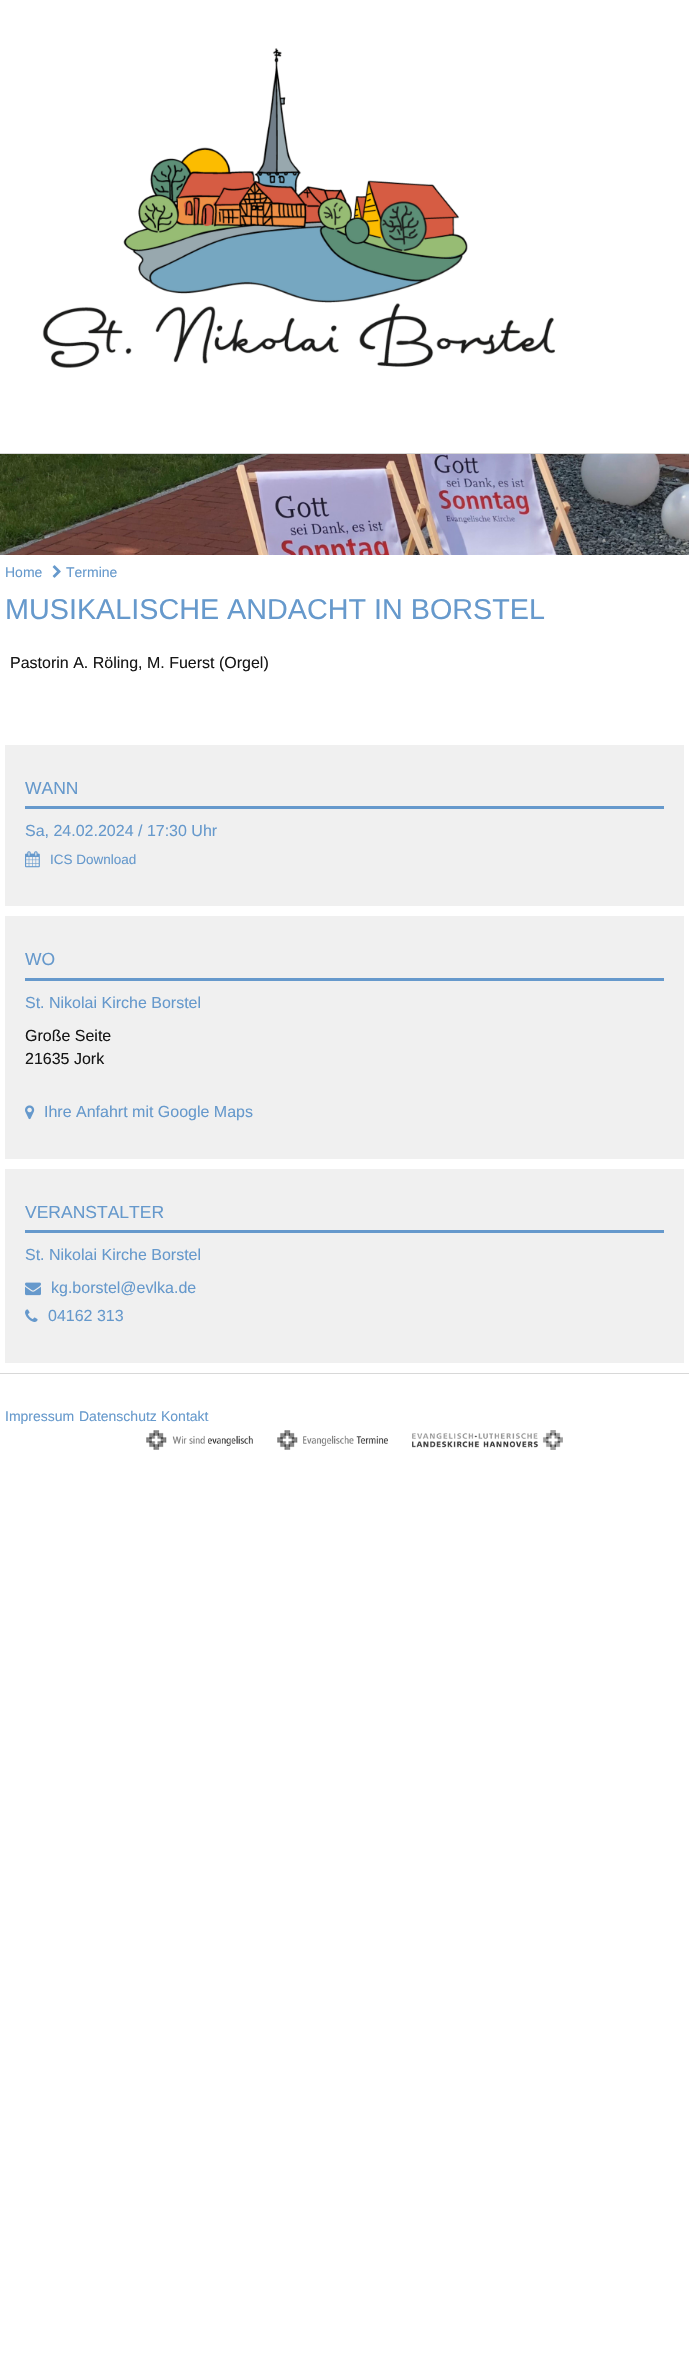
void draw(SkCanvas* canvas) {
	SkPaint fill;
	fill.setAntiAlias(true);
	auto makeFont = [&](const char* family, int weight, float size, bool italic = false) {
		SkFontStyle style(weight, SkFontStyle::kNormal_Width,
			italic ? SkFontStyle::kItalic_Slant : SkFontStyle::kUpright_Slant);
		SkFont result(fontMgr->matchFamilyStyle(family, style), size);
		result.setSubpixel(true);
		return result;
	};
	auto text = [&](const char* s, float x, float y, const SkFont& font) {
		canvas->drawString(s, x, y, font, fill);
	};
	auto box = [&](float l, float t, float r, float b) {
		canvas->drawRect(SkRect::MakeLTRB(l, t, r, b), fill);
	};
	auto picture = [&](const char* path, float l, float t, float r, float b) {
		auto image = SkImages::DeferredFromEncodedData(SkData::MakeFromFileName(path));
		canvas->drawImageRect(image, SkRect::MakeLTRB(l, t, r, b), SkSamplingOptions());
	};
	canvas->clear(0xFFFFFFFF);
	fill.setColor(0xFFD8D8D8);
	box(0, 453, 689, 454);
	picture("image0.png", 42, 48, 556, 368);
	picture("image1.png", 0, 454, 689, 555);
	picture("image2.png", 52, 565, 61, 578);
	fill.setColor(0xFFF0F0F0);
	box(5, 745, 684, 906);
	fill.setColor(0xFF6699CC);
	box(25, 806, 664, 809);
	picture("image3.png", 25, 851, 40, 868);
	fill.setColor(0xFFF0F0F0);
	box(5, 916, 684, 1159);
	fill.setColor(0xFF6699CC);
	box(25, 978, 664, 981);
	picture("image4.png", 25, 1105, 35, 1120);
	fill.setColor(0xFFF0F0F0);
	box(5, 1169, 684, 1363);
	fill.setColor(0xFF6699CC);
	box(25, 1230, 664, 1233);
	picture("image5.png", 25, 1282, 41, 1296);
	picture("image6.png", 25, 1309, 38, 1322);
	fill.setColor(0xFFD8D8D8);
	box(0, 1373, 689, 1374);
	picture("image7.png", 146, 1430, 253, 1450);
	picture("image8.png", 277, 1430, 388, 1450);
	picture("image9.png", 412, 1430, 563, 1450);
	auto font1 = makeFont("Liberation Sans", 400, 14);
	fill.setColor(0xFF6699CC);
	text("Home", 5, 577, font1);
	text("Termine", 66, 577, font1);
	auto font2 = makeFont("Liberation Sans", 400, 28.75f);
	text("MUSIKALISCHE ANDACHT IN BORSTEL", 5, 619, font2);
	auto font3 = makeFont("Liberation Sans", 400, 16);
	fill.setColor(0xFF171717);
	text("Pastorin A. Röling, M. Fuerst (Orgel)", 10, 668, font3);
	auto font4 = makeFont("Liberation Sans", 400, 17.5f);
	fill.setColor(0xFF6699CC);
	text("WANN", 25, 794, font4);
	text("Sa, 24.02.2024 / 17:30 Uhr", 25, 836, font3);
	auto font5 = makeFont("Liberation Sans", 400, 13.5f);
	text("ICS Download", 50, 864, font5);
	text("WO", 25, 965, font4);
	text("St. Nikolai Kirche Borstel", 25, 1008, font3);
	fill.setColor(0xFF171717);
	text("Große Seite", 25, 1041, font3);
	text("21635 Jork", 25, 1064, font3);
	fill.setColor(0xFF6699CC);
	text("Ihre Anfahrt mit Google Maps", 44, 1117, font3);
	text("VERANSTALTER", 25, 1218, font4);
	text("St. Nikolai Kirche Borstel", 25, 1260, font3);
	text("kg.borstel@evlka.de", 51, 1293, font3);
	text("04162 313", 48, 1321, font3);
	text("Impressum", 5, 1421, font1);
	text("Datenschutz", 79, 1421, font1);
	text("Kontakt", 161, 1421, font1);
}
